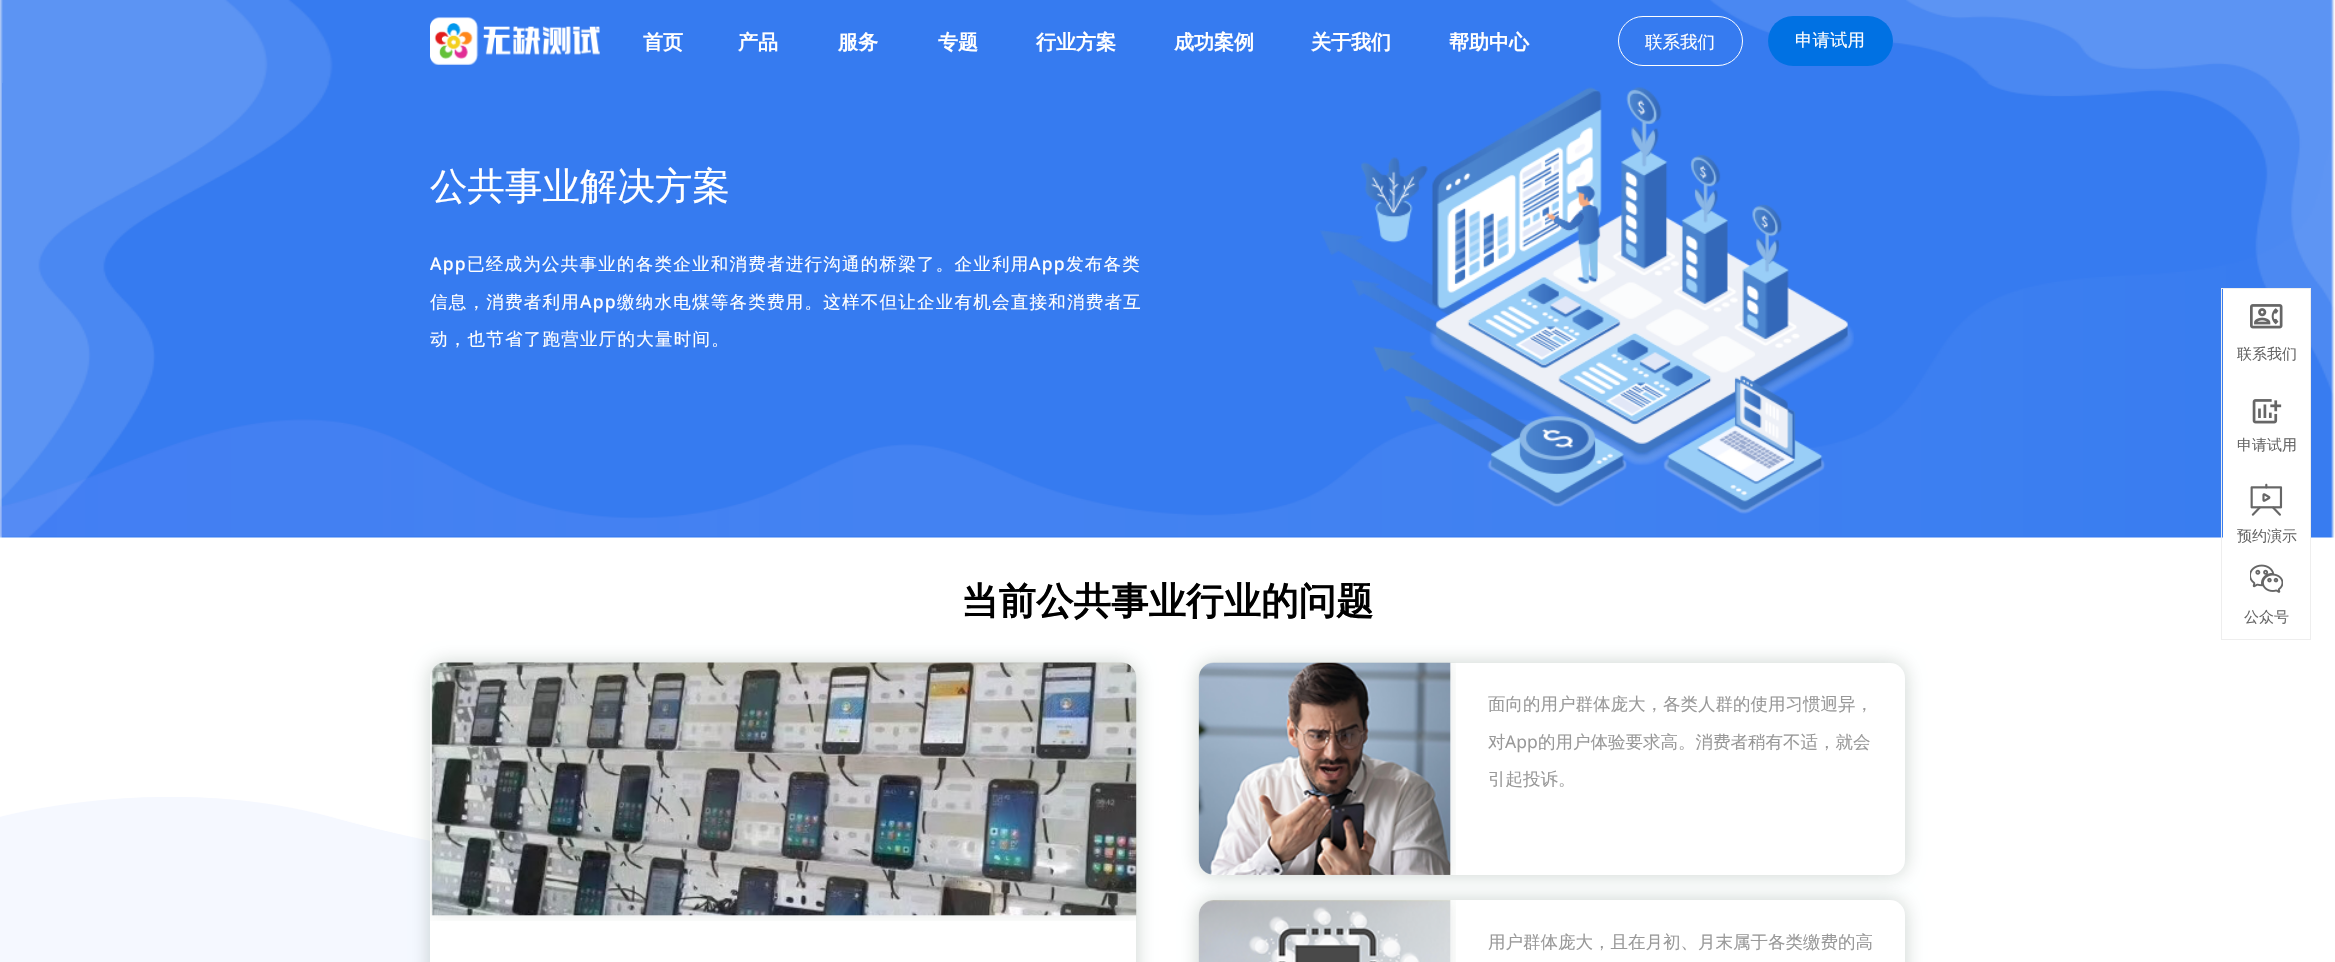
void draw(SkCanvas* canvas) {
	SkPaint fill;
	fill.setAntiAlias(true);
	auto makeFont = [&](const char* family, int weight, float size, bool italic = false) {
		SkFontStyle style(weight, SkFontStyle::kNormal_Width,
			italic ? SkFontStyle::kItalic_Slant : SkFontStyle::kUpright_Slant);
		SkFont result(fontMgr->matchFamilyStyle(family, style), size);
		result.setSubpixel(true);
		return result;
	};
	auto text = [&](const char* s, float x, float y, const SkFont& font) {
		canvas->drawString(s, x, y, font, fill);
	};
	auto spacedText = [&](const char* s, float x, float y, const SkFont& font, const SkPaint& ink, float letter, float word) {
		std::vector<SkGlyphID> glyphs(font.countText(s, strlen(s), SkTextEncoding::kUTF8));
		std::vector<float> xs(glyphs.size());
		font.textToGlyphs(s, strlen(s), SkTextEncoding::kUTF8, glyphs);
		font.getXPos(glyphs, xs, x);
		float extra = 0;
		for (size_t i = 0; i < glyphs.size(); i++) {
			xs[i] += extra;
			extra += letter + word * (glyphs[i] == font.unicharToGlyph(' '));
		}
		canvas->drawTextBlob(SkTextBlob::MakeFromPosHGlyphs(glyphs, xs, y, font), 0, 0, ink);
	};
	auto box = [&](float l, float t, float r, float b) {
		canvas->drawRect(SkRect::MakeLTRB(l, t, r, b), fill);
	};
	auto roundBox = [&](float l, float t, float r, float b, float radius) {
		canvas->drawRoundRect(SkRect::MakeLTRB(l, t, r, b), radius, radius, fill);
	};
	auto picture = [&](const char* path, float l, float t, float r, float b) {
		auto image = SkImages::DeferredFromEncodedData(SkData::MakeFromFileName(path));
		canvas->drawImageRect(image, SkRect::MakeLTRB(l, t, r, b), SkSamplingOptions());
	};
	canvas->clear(0xFFFFFFFF);
	picture("image0.png", 0, 0, 2335, 83);
	picture("image1.png", 430, 17, 478, 65);
	picture("image2.png", 477, 26, 600, 56);
	fill.setStyle(SkPaint::kStroke_Style);
	fill.setStrokeWidth(1);
	fill.setColor(0xFFFFFFFF);
	canvas->drawRoundRect(SkRect::MakeLTRB(1618.5f, 16.5f, 1742.5f, 65.5f), 24.5f, 24.5f, fill);
	fill.setStyle(SkPaint::kFill_Style);
	fill.setColor(0xFF0071E3);
	roundBox(1768, 16, 1893, 66, 25);
	picture("image3.png", 0, 83, 2335, 538);
	picture("image4.png", 1320, 87, 1854, 514);
	fill.setStyle(SkPaint::kStroke_Style);
	fill.setColor(0xFFEEEEEE);
	canvas->drawRect(SkRect::MakeLTRB(2221.5f, 288.5f, 2310.5f, 639.5f), fill);
	fill.setStyle(SkPaint::kFill_Style);
	fill.setColor(0xFFFFFFFF);
	box(2223, 289, 2310, 538);
	picture("image5.png", 2250, 304, 2283, 329);
	picture("image6.png", 2252, 399, 2282, 424);
	picture("image7.png", 2250, 483, 2283, 516);
	picture("image8.png", 2250, 564, 2283, 593);
	picture("image9.png", 0, 797, 430, 962);
	fill.setColor(0x3300210E);
	fill.setMaskFilter(SkMaskFilter::MakeBlur(kNormal_SkBlurStyle, 9.5f));
	canvas->drawRoundRect(SkRect::MakeLTRB(430, 663, 1136, 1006), 15, 15, fill);
	fill.setMaskFilter(nullptr);
	fill.setColor(0xFFFFFFFF);
	roundBox(430, 663, 1136, 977, 15);
	picture("image10.png", 430, 662, 1137, 921);
	fill.setColor(0x3300210E);
	fill.setMaskFilter(SkMaskFilter::MakeBlur(kNormal_SkBlurStyle, 9.5f));
	canvas->drawRoundRect(SkRect::MakeLTRB(1199, 663, 1905, 875), 15, 15, fill);
	fill.setMaskFilter(nullptr);
	fill.setColor(0xFFFFFFFF);
	roundBox(1199, 663, 1905, 875, 15);
	picture("image11.png", 1198, 662, 1456, 875);
	fill.setColor(0x3300210E);
	fill.setMaskFilter(SkMaskFilter::MakeBlur(kNormal_SkBlurStyle, 9.5f));
	canvas->drawRoundRect(SkRect::MakeLTRB(1199, 900, 1905, 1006), 15, 15, fill);
	fill.setMaskFilter(nullptr);
	fill.setColor(0xFFFFFFFF);
	roundBox(1199, 900, 1905, 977, 15);
	picture("image12.png", 1198, 900, 1456, 962);
	auto font1 = makeFont("WenQuanYi Zen Hei", 700, 20);
	text("首页", 643, 49, font1);
	text("产品", 738, 49, font1);
	text("服务", 838, 49, font1);
	text("专题", 938, 49, font1);
	text("行业方案", 1036, 49, font1);
	text("成功案例", 1174, 49, font1);
	text("关于我们", 1311, 49, font1);
	text("帮助中心", 1449, 49, font1);
	auto font2 = makeFont("WenQuanYi Zen Hei", 500, 17.5f);
	text("联系我们", 1645, 48, font2);
	text("申请试用", 1795, 46, font2);
	auto font3 = makeFont("WenQuanYi Zen Hei", 500, 37.5f);
	text("公共事业解决方案", 430, 199, font3);
	auto font4 = makeFont("Noto Sans", 500, 17.5f);
	spacedText("App", 430, 270, font4, fill, 1.25f, 0);
	spacedText("已经成为公共事业的各类企业和消费者进行沟通的桥梁了。企业利用", 467, 270, font2, fill, 1.25f, 0);
	spacedText("App", 1029, 270, font4, fill, 1.25f, 0);
	spacedText("发布各类", 1066, 270, font2, fill, 1.25f, 0);
	spacedText("信息，消费者利用", 430, 308, font2, fill, 1.25f, 0);
	spacedText("App", 580, 308, font4, fill, 1.25f, 0);
	spacedText("缴纳水电煤等各类费用。这样不但让企业有机会直接和消费者互", 617, 308, font2, fill, 1.25f, 0);
	spacedText("动，也节省了跑营业厅的大量时间。", 430, 345, font2, fill, 1.25f, 0);
	auto font5 = makeFont("WenQuanYi Zen Hei", 500, 15);
	fill.setColor(0xFF666666);
	text("联系我们", 2237, 359, font5);
	text("申请试用", 2237, 450, font5);
	text("预约演示", 2237, 541, font5);
	text("公众号", 2244, 622, font5);
	auto font6 = makeFont("WenQuanYi Zen Hei", 700, 37.5f);
	fill.setColor(0xFF000000);
	text("当前公共事业行业的问题", 961, 614, font6);
	fill.setColor(0xFF999999);
	text("面向的用户群体庞大，各类人群的使用习惯迥异，", 1488, 710, font2);
	text("对", 1488, 748, font2);
	auto font7 = makeFont("Noto Sans", 400, 17.5f);
	text("App", 1505, 748, font7);
	text("的用户体验要求高。消费者稍有不适，就会", 1538, 748, font2);
	text("引起投诉。", 1488, 785, font2);
	text("用户群体庞大，且在月初、月末属于各类缴费的高", 1488, 948, font2);
}
